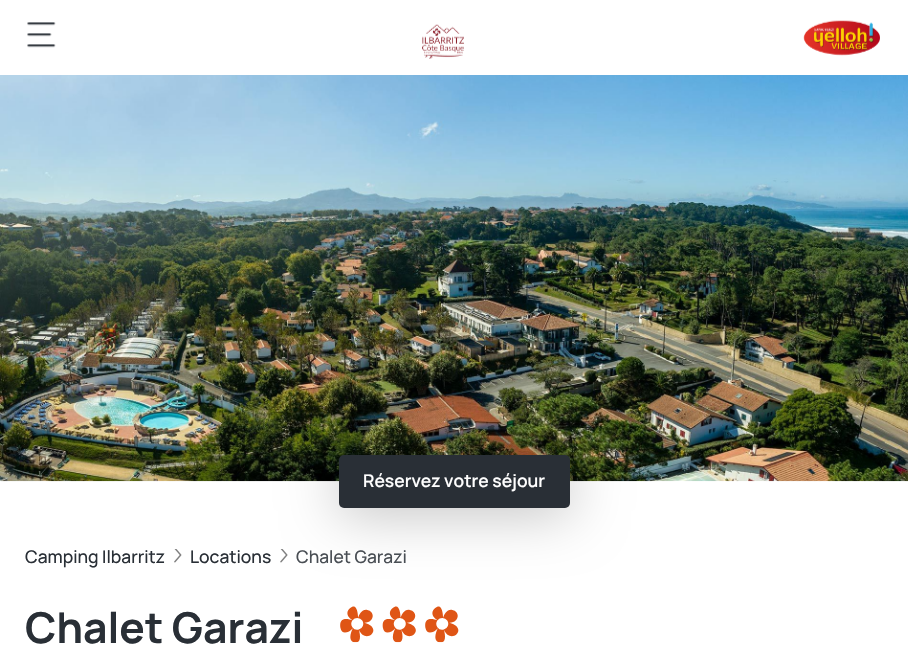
void draw(SkCanvas* canvas) {
	SkPaint fill;
	fill.setAntiAlias(true);
	auto makeFont = [&](const char* family, int weight, float size, bool italic = false) {
		SkFontStyle style(weight, SkFontStyle::kNormal_Width,
			italic ? SkFontStyle::kItalic_Slant : SkFontStyle::kUpright_Slant);
		SkFont result(fontMgr->matchFamilyStyle(family, style), size);
		result.setSubpixel(true);
		return result;
	};
	auto text = [&](const char* s, float x, float y, const SkFont& font) {
		canvas->drawString(s, x, y, font, fill);
	};
	auto roundBox = [&](float l, float t, float r, float b, float radius) {
		canvas->drawRoundRect(SkRect::MakeLTRB(l, t, r, b), radius, radius, fill);
	};
	auto picture = [&](const char* path, float l, float t, float r, float b) {
		auto image = SkImages::DeferredFromEncodedData(SkData::MakeFromFileName(path));
		canvas->drawImageRect(image, SkRect::MakeLTRB(l, t, r, b), SkSamplingOptions());
	};
	canvas->clear(0xFFFFFFFF);
	picture("image0.png", 27, 22, 56, 48);
	picture("image1.png", 422, 24, 464, 59);
	picture("image2.png", 803, 20, 880, 56);
	picture("image3.png", 0, 75, 908, 482);
	picture("image5.png", 280, 549, 288, 563);
	fill.setColor(0x40000000);
	fill.setMaskFilter(SkMaskFilter::MakeBlur(kNormal_SkBlurStyle, 27.5f));
	canvas->drawRoundRect(SkRect::MakeLTRB(339, 460, 570, 513), 5, 5, fill);
	fill.setMaskFilter(nullptr);
	fill.setColor(0xFF292F36);
	roundBox(339, 455, 570, 508, 5);
	picture("image4.png", 174, 549, 182, 563);
	picture("image6.png", 340, 606, 374, 643);
	picture("image7.png", 382, 606, 416, 643);
	picture("image6.png", 425, 606, 459, 643);
	auto font1 = makeFont("Manrope", 600, 17.5f);
	fill.setColor(0xFFFFFFFF);
	text("Réservez votre séjour", 363, 487, font1);
	auto font2 = makeFont("Manrope", 500, 17.5f);
	fill.setColor(0xFF292F36);
	text("Camping Ilbarritz", 25, 563, font2);
	text("Locations", 190, 563, font2);
	fill.setColor(0xFF494E54);
	text("Chalet Garazi", 296, 563, font2);
	auto font3 = makeFont("Manrope", 700, 42.5f);
	fill.setColor(0xFF292F36);
	text("Chalet Garazi", 25, 643, font3);
}
